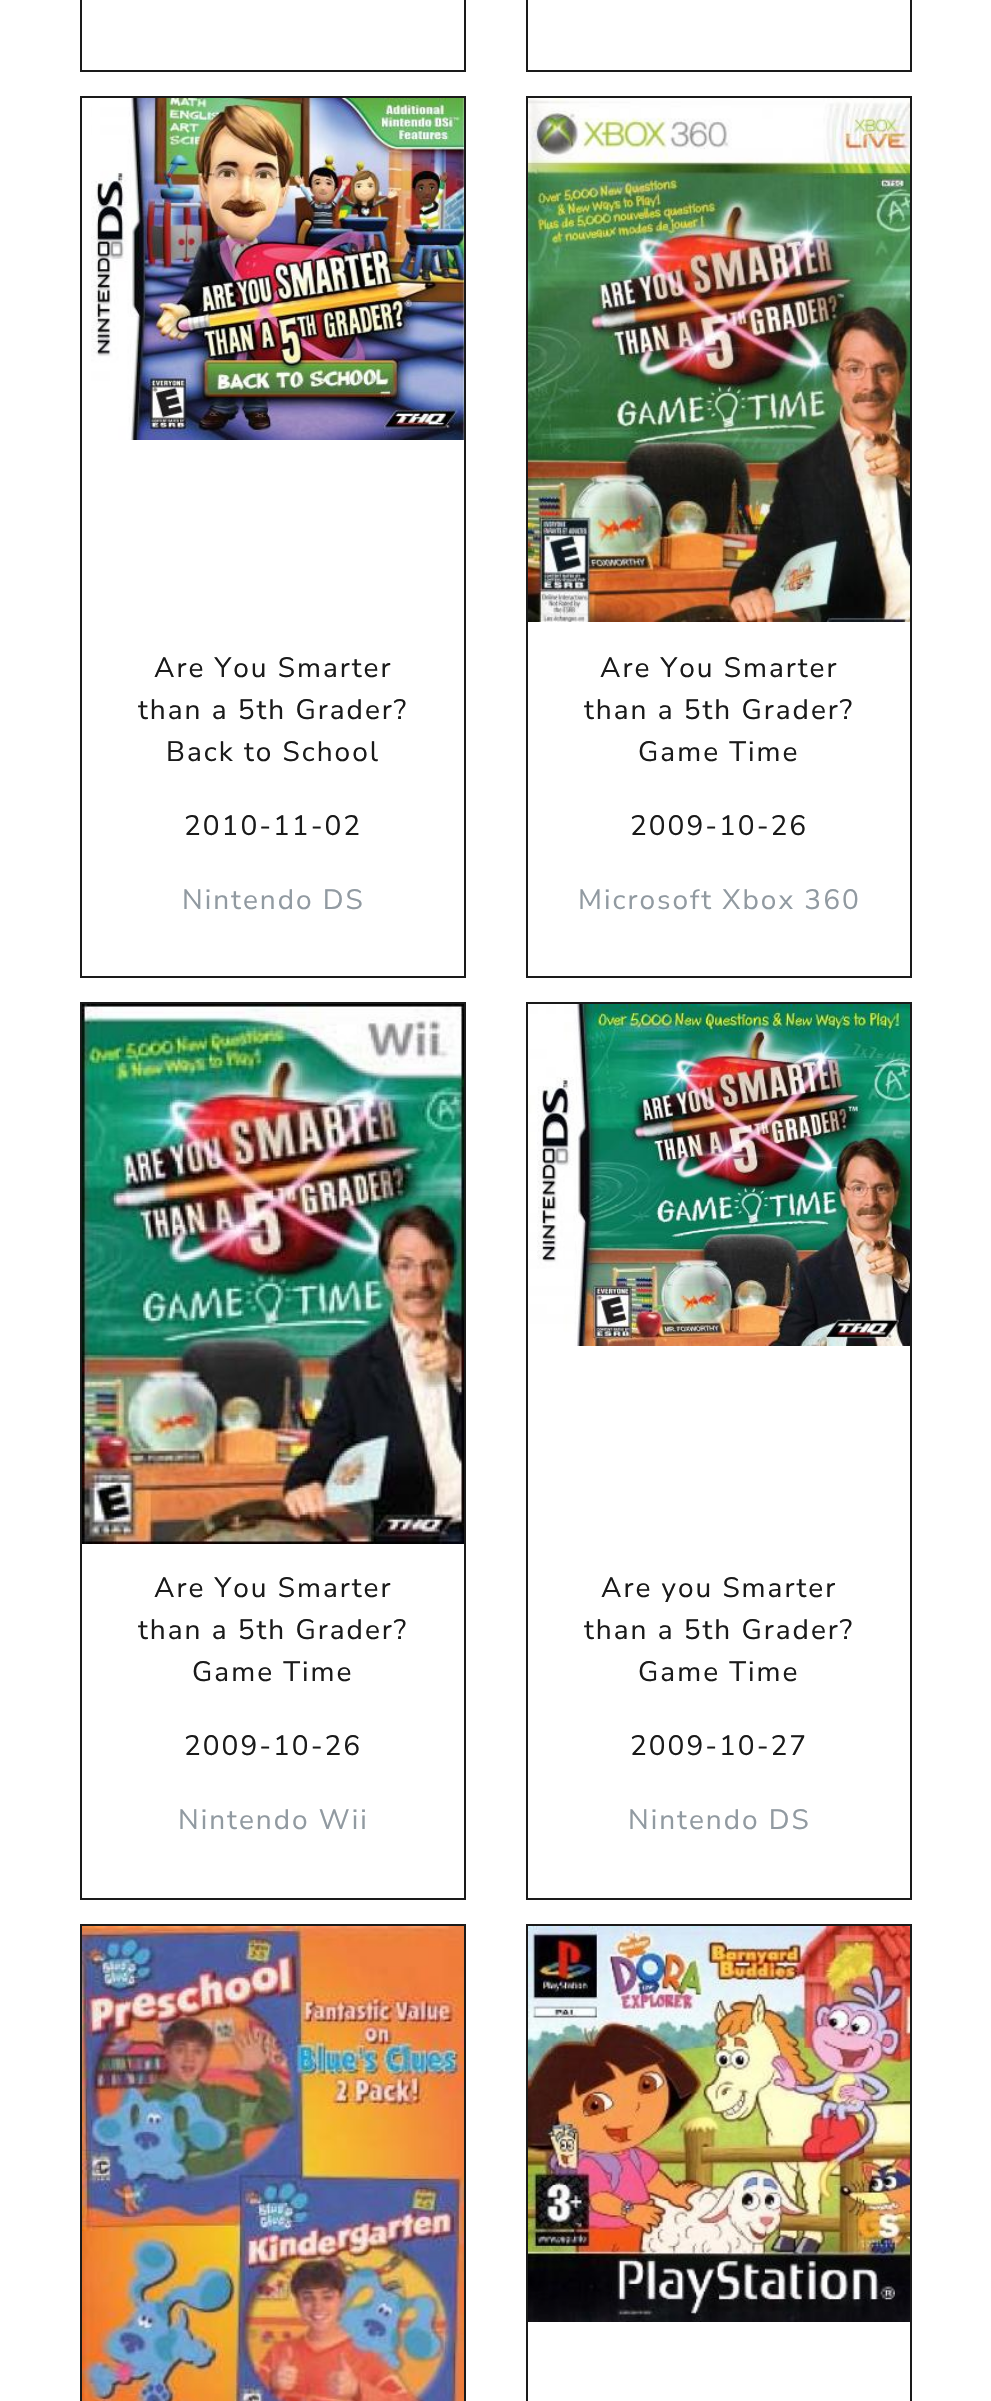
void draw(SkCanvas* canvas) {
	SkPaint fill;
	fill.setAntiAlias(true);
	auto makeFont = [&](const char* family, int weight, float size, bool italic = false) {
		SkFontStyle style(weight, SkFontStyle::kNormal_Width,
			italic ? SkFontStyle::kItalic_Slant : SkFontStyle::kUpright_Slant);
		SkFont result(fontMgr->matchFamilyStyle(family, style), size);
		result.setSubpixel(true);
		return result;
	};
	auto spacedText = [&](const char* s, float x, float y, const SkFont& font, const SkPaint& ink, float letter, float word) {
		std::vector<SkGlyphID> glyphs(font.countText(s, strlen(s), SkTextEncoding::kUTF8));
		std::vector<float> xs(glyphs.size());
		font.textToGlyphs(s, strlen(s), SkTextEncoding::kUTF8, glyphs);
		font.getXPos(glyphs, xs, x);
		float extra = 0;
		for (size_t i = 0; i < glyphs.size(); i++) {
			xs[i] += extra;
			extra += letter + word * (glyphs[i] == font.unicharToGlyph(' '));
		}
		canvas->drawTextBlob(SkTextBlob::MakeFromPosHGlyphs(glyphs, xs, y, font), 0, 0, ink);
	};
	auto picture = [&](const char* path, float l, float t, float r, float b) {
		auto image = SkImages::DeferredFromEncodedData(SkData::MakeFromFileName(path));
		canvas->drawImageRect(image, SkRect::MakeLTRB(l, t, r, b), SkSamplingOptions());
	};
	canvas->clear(0xFFFFFFFF);
	fill.setStyle(SkPaint::kStroke_Style);
	fill.setStrokeWidth(2);
	fill.setColor(0xFF1A1A1A);
	canvas->drawRect(SkRect::MakeLTRB(81, -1, 465, 71), fill);
	canvas->drawRect(SkRect::MakeLTRB(527, -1, 911, 71), fill);
	canvas->drawRect(SkRect::MakeLTRB(81, 97, 465, 977), fill);
	picture("image0.png", 91, 98, 464, 440);
	canvas->drawRect(SkRect::MakeLTRB(527, 97, 911, 977), fill);
	picture("image1.png", 528, 98, 910, 622);
	canvas->drawRect(SkRect::MakeLTRB(81, 1003, 465, 1899), fill);
	picture("image2.png", 82, 1004, 464, 1544);
	canvas->drawRect(SkRect::MakeLTRB(527, 1003, 911, 1899), fill);
	picture("image3.png", 528, 1004, 910, 1346);
	canvas->drawRect(SkRect::MakeLTRB(81, 1925, 465, 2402), fill);
	picture("image4.png", 82, 1926, 464, 2401);
	canvas->drawRect(SkRect::MakeLTRB(527, 1925, 911, 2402), fill);
	picture("image5.png", 528, 1926, 910, 2322);
	auto font1 = makeFont("Nunito Sans", 400, 28);
	fill.setStyle(SkPaint::kFill_Style);
	spacedText("Are You Smarter", 154, 677, font1, fill, 2, 0);
	spacedText("than a 5th Grader?", 138, 719, font1, fill, 2, 0);
	spacedText("Back to School", 166, 761, font1, fill, 2, 0);
	spacedText("2010-11-02", 184, 835, font1, fill, 2, 0);
	fill.setColor(0xFF919AA1);
	spacedText("Nintendo DS", 182, 909, font1, fill, 2, 0);
	fill.setColor(0xFF1A1A1A);
	spacedText("Are You Smarter", 600, 677, font1, fill, 2, 0);
	spacedText("than a 5th Grader?", 584, 719, font1, fill, 2, 0);
	spacedText("Game Time", 638, 761, font1, fill, 2, 0);
	spacedText("2009-10-26", 630, 835, font1, fill, 2, 0);
	fill.setColor(0xFF919AA1);
	spacedText("Microsoft Xbox 360", 578, 909, font1, fill, 2, 0);
	fill.setColor(0xFF1A1A1A);
	spacedText("Are You Smarter", 154, 1597, font1, fill, 2, 0);
	spacedText("than a 5th Grader?", 138, 1639, font1, fill, 2, 0);
	spacedText("Game Time", 192, 1681, font1, fill, 2, 0);
	spacedText("2009-10-26", 184, 1755, font1, fill, 2, 0);
	fill.setColor(0xFF919AA1);
	spacedText("Nintendo Wii", 178, 1829, font1, fill, 2, 0);
	fill.setColor(0xFF1A1A1A);
	spacedText("Are you Smarter", 601, 1597, font1, fill, 2, 0);
	spacedText("than a 5th Grader?", 584, 1639, font1, fill, 2, 0);
	spacedText("Game Time", 638, 1681, font1, fill, 2, 0);
	spacedText("2009-10-27", 630, 1755, font1, fill, 2, 0);
	fill.setColor(0xFF919AA1);
	spacedText("Nintendo DS", 628, 1829, font1, fill, 2, 0);
}
